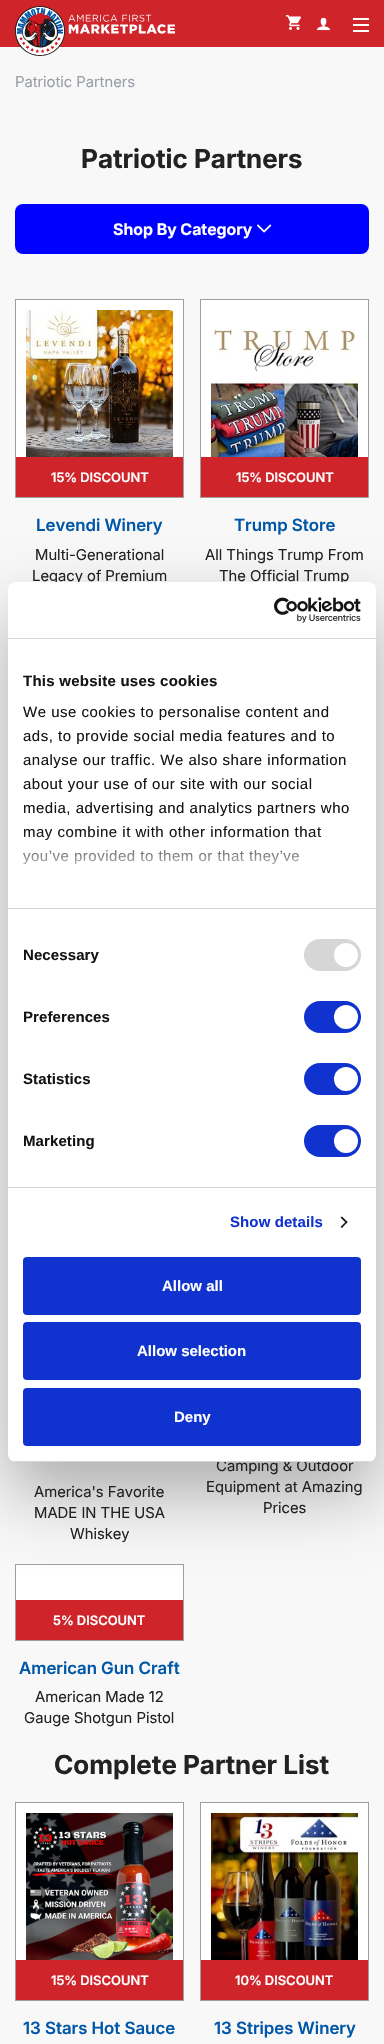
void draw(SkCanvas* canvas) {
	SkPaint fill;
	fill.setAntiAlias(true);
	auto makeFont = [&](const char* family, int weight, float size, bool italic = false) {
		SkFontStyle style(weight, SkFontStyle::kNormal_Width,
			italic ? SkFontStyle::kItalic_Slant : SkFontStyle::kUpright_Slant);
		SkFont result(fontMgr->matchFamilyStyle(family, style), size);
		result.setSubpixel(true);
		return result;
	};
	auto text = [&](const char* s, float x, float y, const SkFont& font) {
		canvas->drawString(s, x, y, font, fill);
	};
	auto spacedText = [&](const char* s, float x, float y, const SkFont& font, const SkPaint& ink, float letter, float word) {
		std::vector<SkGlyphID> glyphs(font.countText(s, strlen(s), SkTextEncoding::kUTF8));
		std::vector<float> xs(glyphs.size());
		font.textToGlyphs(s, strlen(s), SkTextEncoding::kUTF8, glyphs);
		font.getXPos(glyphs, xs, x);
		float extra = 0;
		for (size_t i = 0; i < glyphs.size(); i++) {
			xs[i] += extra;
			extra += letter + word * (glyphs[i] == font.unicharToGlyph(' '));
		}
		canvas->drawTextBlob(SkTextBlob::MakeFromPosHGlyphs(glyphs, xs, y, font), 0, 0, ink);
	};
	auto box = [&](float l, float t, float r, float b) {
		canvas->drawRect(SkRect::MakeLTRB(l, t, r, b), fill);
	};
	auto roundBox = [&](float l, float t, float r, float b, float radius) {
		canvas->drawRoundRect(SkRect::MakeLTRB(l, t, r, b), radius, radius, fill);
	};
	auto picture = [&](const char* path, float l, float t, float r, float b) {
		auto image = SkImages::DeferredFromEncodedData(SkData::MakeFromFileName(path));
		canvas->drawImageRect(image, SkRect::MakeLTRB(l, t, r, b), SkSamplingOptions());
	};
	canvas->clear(0xFFF8F8F8);
	fill.setColor(0xFFCF242A);
	box(0, 0, 384, 47);
	picture("image0.png", 15, 6, 175, 56);
	picture("image1.png", 286, 14, 301, 30);
	picture("image2.png", 317, 17, 330, 31);
	fill.setColor(0xFFFFFFFF);
	box(353, 24, 369, 26);
	box(353, 18, 369, 20);
	box(353, 30, 369, 32);
	fill.setColor(0xFF0000FF);
	roundBox(15, 204, 369, 254, 8);
	picture("image3.png", 257, 224, 272, 233);
	fill.setColor(0xFFFFFFFF);
	box(16, 300, 183, 457);
	fill.setStyle(SkPaint::kStroke_Style);
	fill.setStrokeWidth(1);
	fill.setColor(0xFF9B9FA7);
	canvas->drawRect(SkRect::MakeLTRB(15.5f, 299.5f, 183.5f, 497.5f), fill);
	picture("image4.png", 26, 310, 173, 457);
	fill.setStyle(SkPaint::kFill_Style);
	fill.setColor(0xFFCF242A);
	box(16, 457, 183, 497);
	fill.setColor(0xFFFFFFFF);
	box(201, 300, 368, 457);
	fill.setStyle(SkPaint::kStroke_Style);
	fill.setColor(0xFF9B9FA7);
	canvas->drawRect(SkRect::MakeLTRB(200.5f, 299.5f, 368.5f, 497.5f), fill);
	picture("image5.png", 211, 329, 358, 457);
	fill.setStyle(SkPaint::kFill_Style);
	fill.setColor(0xFFCF242A);
	box(201, 457, 368, 497);
	fill.setColor(0xFFFFFFFF);
	box(16, 1565, 183, 1600);
	fill.setStyle(SkPaint::kStroke_Style);
	fill.setColor(0xFF9B9FA7);
	canvas->drawRect(SkRect::MakeLTRB(15.5f, 1564.5f, 183.5f, 1640.5f), fill);
	fill.setStyle(SkPaint::kFill_Style);
	fill.setColor(0xFFCF242A);
	box(16, 1600, 183, 1640);
	fill.setColor(0xFFFFFFFF);
	box(16, 1803, 183, 1960);
	fill.setStyle(SkPaint::kStroke_Style);
	fill.setColor(0xFF9B9FA7);
	canvas->drawRect(SkRect::MakeLTRB(15.5f, 1802.5f, 183.5f, 2000.5f), fill);
	picture("image6.png", 26, 1813, 173, 1960);
	fill.setStyle(SkPaint::kFill_Style);
	fill.setColor(0xFFCF242A);
	box(16, 1960, 183, 2000);
	fill.setColor(0xFFFFFFFF);
	box(201, 1803, 368, 1960);
	fill.setStyle(SkPaint::kStroke_Style);
	fill.setColor(0xFF9B9FA7);
	canvas->drawRect(SkRect::MakeLTRB(200.5f, 1802.5f, 368.5f, 2000.5f), fill);
	picture("image7.png", 211, 1813, 358, 1960);
	fill.setStyle(SkPaint::kFill_Style);
	fill.setColor(0xFFCF242A);
	box(201, 1960, 368, 2000);
	fill.setColor(0x4D000000);
	fill.setMaskFilter(SkMaskFilter::MakeBlur(kNormal_SkBlurStyle, 34));
	canvas->drawRoundRect(SkRect::MakeLTRB(8, 614, 376, 1494), 8, 8, fill);
	fill.setMaskFilter(nullptr);
	auto font1 = makeFont("Inter", 400, 15);
	fill.setColor(0xFF9A9FA7);
	text("Patriotic Partners", 15, 87, font1);
	auto font2 = makeFont("Inter", 700, 26.25f);
	fill.setColor(0xFF222222);
	text("Patriotic Partners", 81, 168, font2);
	auto font3 = makeFont("Inter", 700, 16);
	fill.setColor(0xFFFFFFFF);
	text("Shop By Category", 113, 235, font3);
	auto font4 = makeFont("Inter", 600, 13);
	text("15% DISCOUNT", 51, 482, font4);
	auto font5 = makeFont("Inter", 600, 17);
	fill.setColor(0xFF0057A8);
	text("Levendi Winery", 36, 531, font5);
	fill.setColor(0xFF222222);
	text("Multi-Generational", 35, 560, font1);
	text("Legacy of Premium", 32, 581, font1);
	fill.setColor(0xFFFFFFFF);
	text("15% DISCOUNT", 236, 482, font4);
	fill.setColor(0xFF0057A8);
	text("Trump Store", 234, 531, font5);
	fill.setColor(0xFF222222);
	text("All Things Trump From", 205, 560, font1);
	text("The Official Trump", 219, 581, font1);
	text("America's Favorite", 34, 1497, font1);
	text("MADE IN THE USA", 34, 1518, font1);
	text("Whiskey", 70, 1539, font1);
	text("Camping & Outdoor", 216, 1471, font1);
	text("Equipment at Amazing", 206, 1492, font1);
	text("Prices", 263, 1513, font1);
	fill.setColor(0xFFFFFFFF);
	text("5% DISCOUNT", 53, 1625, font4);
	fill.setColor(0xFF0057A8);
	text("American Gun Craft", 19, 1674, font5);
	fill.setColor(0xFF222222);
	text("American Made 12", 35, 1702, font1);
	text("Gauge Shotgun Pistol", 24, 1723, font1);
	text("Complete Partner List", 54, 1774, font2);
	fill.setColor(0xFFFFFFFF);
	text("15% DISCOUNT", 51, 1985, font4);
	fill.setColor(0xFF0057A8);
	text("13 Stars Hot Sauce", 23, 2034, font5);
	fill.setColor(0xFFFFFFFF);
	text("10% DISCOUNT", 235, 1985, font4);
	fill.setColor(0xFF0057A8);
	text("13 Stripes Winery", 214, 2034, font5);
	fill.setColor(0xFFFFFFFF);
	roundBox(8, 582, 376, 1462, 8);
	fill.setColor(0xFFD6D6D6);
	box(8, 638, 376, 639);
	picture("image8.png", 274, 597, 361, 623);
	box(8, 908, 376, 909);
	auto font6 = makeFont("Liberation Sans", 700, 15);
	fill.setColor(0xFF141414);
	spacedText("This website uses cookies", 23, 686, font6, fill, 0.25f, 0);
	auto font7 = makeFont("Liberation Sans", 400, 15);
	spacedText("We use cookies to personalise content and", 23, 717, font7, fill, 0.5f, 0);
	spacedText("ads, to provide social media features and to", 23, 741, font7, fill, 0.5f, 0);
	spacedText("analyse our traffic. We also share information", 23, 765, font7, fill, 0.5f, 0);
	spacedText("about your use of our site with our social", 23, 789, font7, fill, 0.5f, 0);
	spacedText("media, advertising and analytics partners who", 23, 813, font7, fill, 0.5f, 0);
	spacedText("may combine it with other information that", 23, 837, font7, fill, 0.5f, 0);
	spacedText("you’ve provided to them or that they’ve", 23, 861, font7, fill, 0.5f, 0);
	{
		const SkColor colors[] = {0xFFFFFFFF, 0xCCFFFFFF, 0x00FFFFFF};
		const float stops[] = {0, 0.5f, 1};
		const SkPoint ends[] = {{186, 908}, {186, 833}};
		fill.setShader(SkGradientShader::MakeLinear(ends, colors, stops, 3, SkTileMode::kClamp));
		fill.setAlpha(255);
	}
	box(23, 834, 321, 865);
	fill.setShader(nullptr);
	fill.setColor(0xFFD6D6D6);
	box(8, 1187, 376, 1188);
	fill.setColor(0xFF141414);
	spacedText("Necessary", 23, 960, font6, fill, 0.1f, 0);
	fill.setColor(0xFFD6D6D6);
	roundBox(304, 939, 361, 971, 16);
	fill.setColor(0xFFFFFFFF);
	canvas->drawCircle(346, 955, 12, fill);
	fill.setColor(0xFF141414);
	spacedText("Preferences", 23, 1022, font6, fill, 0.1f, 0);
	fill.setColor(0xFF1032CF);
	roundBox(304, 1001, 361, 1033, 16);
	fill.setColor(0xFFFFFFFF);
	canvas->drawCircle(346, 1017, 12, fill);
	fill.setColor(0xFF141414);
	spacedText("Statistics", 23, 1084, font6, fill, 0.1f, 0);
	fill.setColor(0xFF1032CF);
	roundBox(304, 1063, 361, 1095, 16);
	fill.setColor(0xFFFFFFFF);
	canvas->drawCircle(346, 1079, 12, fill);
	fill.setColor(0xFF141414);
	spacedText("Marketing", 23, 1146, font6, fill, 0.1f, 0);
	fill.setColor(0xFF1032CF);
	roundBox(304, 1125, 361, 1157, 16);
	fill.setColor(0xFFFFFFFF);
	canvas->drawCircle(346, 1141, 12, fill);
	fill.setColor(0xFF1032CF);
	spacedText("Show details", 230, 1227, font6, fill, 0.1f, 0);
	fill.setColor(0xFF141414);
	canvas->drawPath(SkPathBuilder().moveTo(342, 1216.5f).lineTo(347.5f, 1222).lineTo(346.5f, 1223.5f).lineTo(340.5f, 1217.5f).close().detach(), fill);
	canvas->drawPath(SkPathBuilder().moveTo(346.5f, 1221).lineTo(347.5f, 1222).lineTo(342, 1228).lineTo(340.5f, 1227).close().detach(), fill);
	canvas->save();
	canvas->clipPath(SkPathBuilder().moveTo(16, 582).lineTo(368, 582).cubicTo(372.5f, 582, 376, 585.5f, 376, 590).lineTo(376, 1454).cubicTo(376, 1458.5f, 372.5f, 1462, 368, 1462).lineTo(16, 1462).cubicTo(11.5f, 1462, 8, 1458.5f, 8, 1454).lineTo(8, 590).cubicTo(8, 585.5f, 11.5f, 582, 16, 582).close().detach(), true);
	fill.setColor(0xFFD6D6D6);
	box(8, 1461, 376, 1462);
	canvas->restore();
	fill.setColor(0xFF1032CF);
	canvas->drawRoundRect(SkRect::MakeLTRB(24, 1258, 360, 1314), 3, 3, fill);
	fill.setStyle(SkPaint::kStroke_Style);
	fill.setStrokeWidth(2);
	canvas->drawRoundRect(SkRect::MakeLTRB(24, 1258, 360, 1314), 3, 3, fill);
	fill.setStyle(SkPaint::kFill_Style);
	fill.setColor(0xFFFFFFFF);
	text("Allow all", 162, 1291, font6);
	fill.setColor(0xFF1032CF);
	canvas->drawRoundRect(SkRect::MakeLTRB(24, 1323, 360, 1379), 3, 3, fill);
	fill.setStyle(SkPaint::kStroke_Style);
	canvas->drawRoundRect(SkRect::MakeLTRB(24, 1323, 360, 1379), 3, 3, fill);
	fill.setStyle(SkPaint::kFill_Style);
	fill.setColor(0xFFFFFFFF);
	text("Allow selection", 137, 1356, font6);
	fill.setColor(0xFF1032CF);
	canvas->drawRoundRect(SkRect::MakeLTRB(24, 1389, 360, 1445), 3, 3, fill);
	fill.setStyle(SkPaint::kStroke_Style);
	canvas->drawRoundRect(SkRect::MakeLTRB(24, 1389, 360, 1445), 3, 3, fill);
	fill.setStyle(SkPaint::kFill_Style);
	fill.setColor(0xFFFFFFFF);
	text("Deny", 174, 1422, font6);
}
